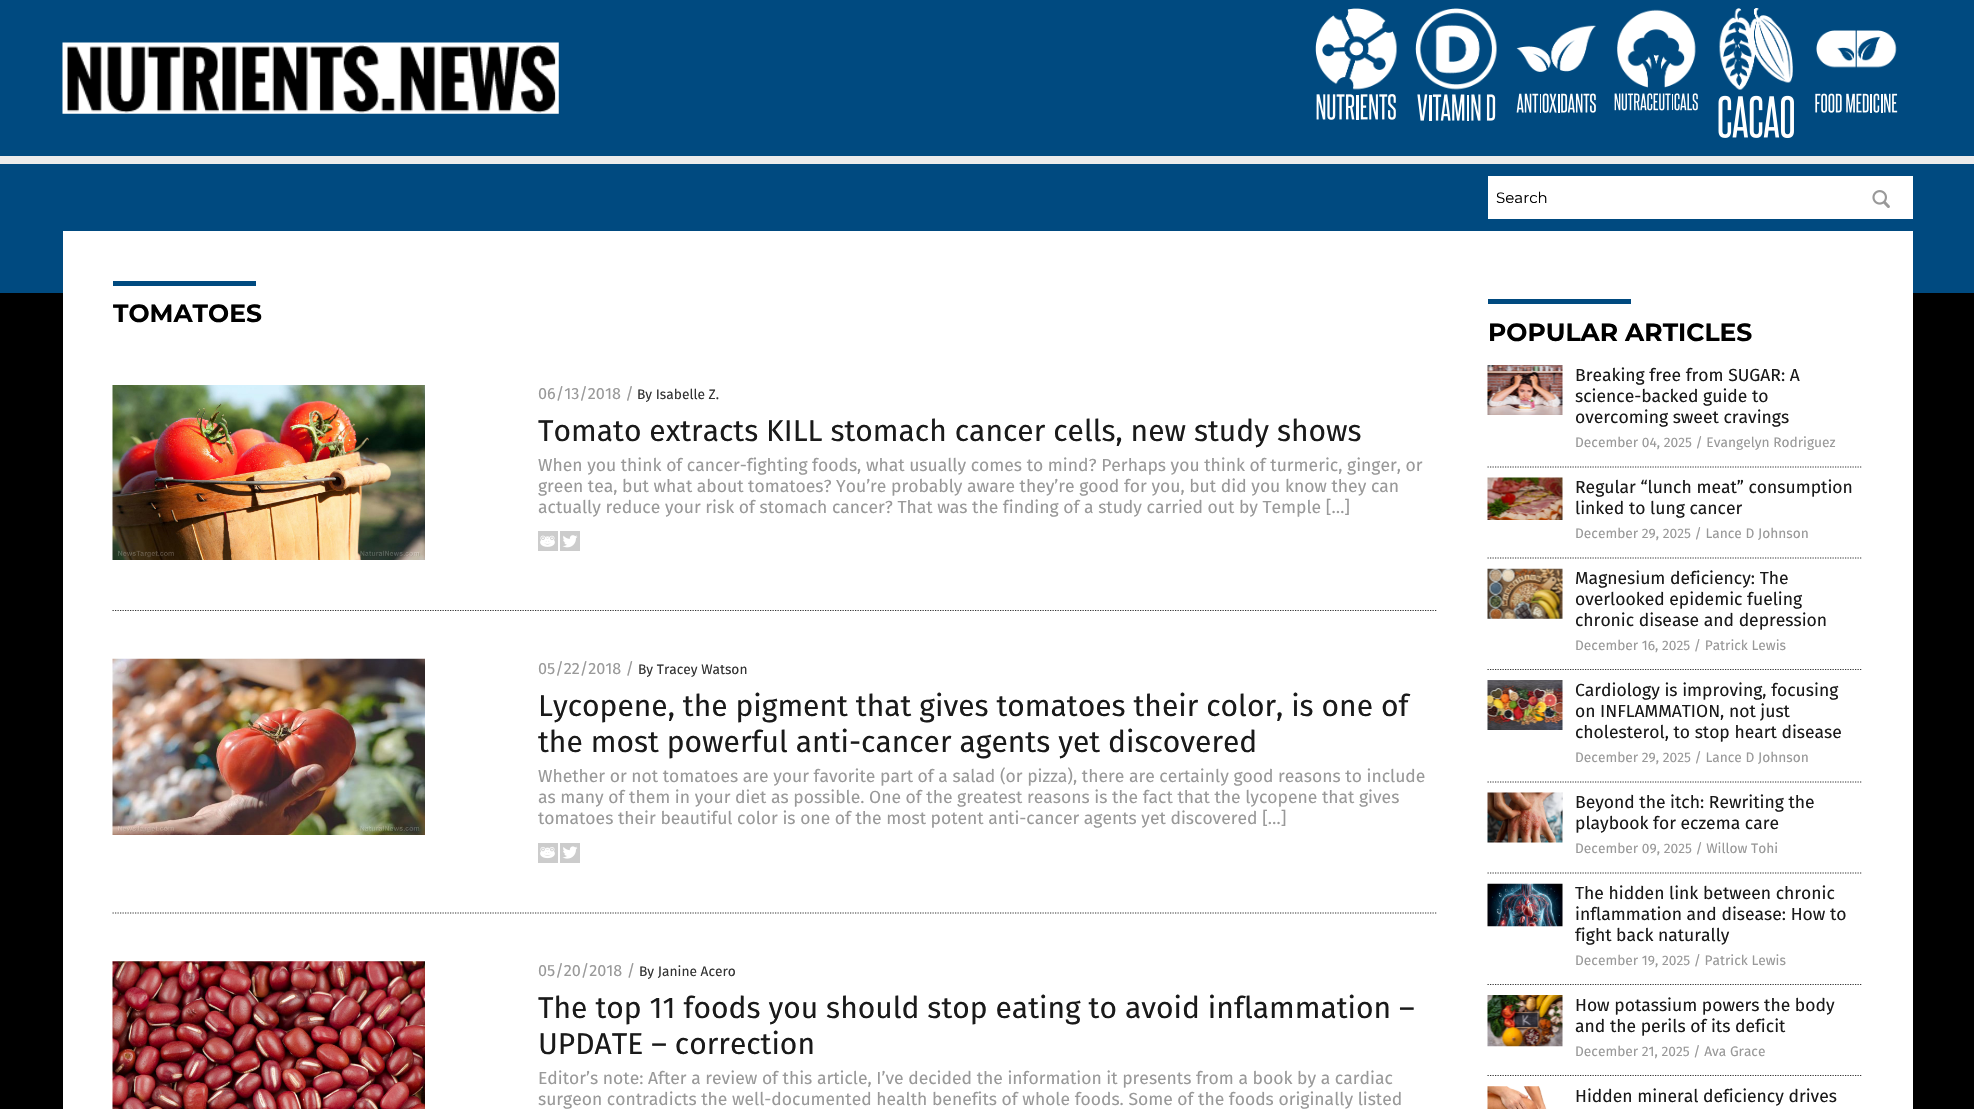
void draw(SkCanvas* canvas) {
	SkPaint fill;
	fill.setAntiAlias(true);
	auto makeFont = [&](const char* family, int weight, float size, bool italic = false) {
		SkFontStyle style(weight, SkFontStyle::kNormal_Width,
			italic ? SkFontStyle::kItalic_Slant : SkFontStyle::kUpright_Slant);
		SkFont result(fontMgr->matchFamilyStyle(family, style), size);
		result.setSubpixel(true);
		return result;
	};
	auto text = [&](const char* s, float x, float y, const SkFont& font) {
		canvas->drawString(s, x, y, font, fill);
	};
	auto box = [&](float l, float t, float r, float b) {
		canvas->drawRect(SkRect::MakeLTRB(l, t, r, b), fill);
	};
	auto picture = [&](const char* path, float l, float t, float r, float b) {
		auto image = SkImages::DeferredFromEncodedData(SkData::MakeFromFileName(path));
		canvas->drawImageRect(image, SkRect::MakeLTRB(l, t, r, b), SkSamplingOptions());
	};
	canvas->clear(0xFF000000);
	fill.setColor(0xFF004A80);
	box(0, 0, 1974, 293);
	picture("image0.png", 62, 42, 559, 114);
	picture("image1.png", 1315, 8, 1397, 90);
	picture("image2.png", 1316, 94, 1396, 120);
	picture("image3.png", 1415, 8, 1497, 90);
	picture("image4.png", 1417, 94, 1496, 121);
	picture("image5.png", 1516, 25, 1596, 72);
	picture("image6.png", 1516, 93, 1596, 113);
	picture("image7.png", 1617, 9, 1696, 88);
	picture("image8.png", 1614, 93, 1698, 111);
	picture("image9.png", 1719, 8, 1793, 90);
	picture("image10.png", 1718, 95, 1794, 139);
	picture("image11.png", 1816, 30, 1897, 68);
	picture("image12.png", 1815, 93, 1898, 113);
	fill.setColor(0xFFECECEC);
	box(0, 156, 1974, 164);
	fill.setColor(0xFFFFFFFF);
	box(1488, 176, 1913, 219);
	picture("image13.png", 1872, 190, 1890, 208);
	box(63, 231, 1913, 1109);
	fill.setColor(0xFF004A80);
	box(113, 281, 256, 286);
	fill.setStyle(SkPaint::kStroke_Style);
	fill.setStrokeWidth(1.2f);
	fill.setColor(0xFF343434);
	fill.setPathEffect(SkDashPathEffect::Make({{1.25f, 1.25f}}, 0));
	canvas->drawPath(SkPathBuilder().moveTo(112.5f, 610.5f).lineTo(1437.5f, 610.5f).detach(), fill);
	fill.setPathEffect(nullptr);
	picture("image14.png", 112, 385, 425, 560);
	picture("image15.png", 538, 531, 558, 551);
	picture("image16.png", 560, 531, 580, 551);
	fill.setPathEffect(SkDashPathEffect::Make({{1.25f, 1.25f}}, 0));
	canvas->drawPath(SkPathBuilder().moveTo(112.5f, 913).lineTo(1437.5f, 913).detach(), fill);
	fill.setPathEffect(nullptr);
	picture("image17.png", 112, 658, 425, 835);
	picture("image18.png", 538, 843, 558, 863);
	picture("image19.png", 560, 843, 580, 863);
	picture("image20.png", 112, 961, 425, 1109);
	fill.setStyle(SkPaint::kFill_Style);
	fill.setColor(0xFF004A80);
	box(1488, 299, 1631, 304);
	fill.setStyle(SkPaint::kStroke_Style);
	fill.setColor(0xFF343434);
	fill.setPathEffect(SkDashPathEffect::Make({{1.25f, 1.25f}}, 0));
	canvas->drawPath(SkPathBuilder().moveTo(1487.5f, 467).lineTo(1862.5f, 467).detach(), fill);
	fill.setPathEffect(nullptr);
	picture("image21.png", 1487, 365, 1563, 415);
	fill.setPathEffect(SkDashPathEffect::Make({{1.25f, 1.25f}}, 0));
	canvas->drawPath(SkPathBuilder().moveTo(1487.5f, 558).lineTo(1862.5f, 558).detach(), fill);
	fill.setPathEffect(nullptr);
	picture("image22.png", 1487, 477, 1563, 520);
	fill.setPathEffect(SkDashPathEffect::Make({{1.25f, 1.25f}}, 0));
	canvas->drawPath(SkPathBuilder().moveTo(1487.5f, 669.5f).lineTo(1862.5f, 669.5f).detach(), fill);
	fill.setPathEffect(nullptr);
	picture("image23.png", 1487, 568, 1563, 619);
	fill.setPathEffect(SkDashPathEffect::Make({{1.25f, 1.25f}}, 0));
	canvas->drawPath(SkPathBuilder().moveTo(1487.5f, 782).lineTo(1862.5f, 782).detach(), fill);
	fill.setPathEffect(nullptr);
	picture("image24.png", 1487, 680, 1563, 730);
	fill.setPathEffect(SkDashPathEffect::Make({{1.25f, 1.25f}}, 0));
	canvas->drawPath(SkPathBuilder().moveTo(1487.5f, 873).lineTo(1862.5f, 873).detach(), fill);
	fill.setPathEffect(nullptr);
	picture("image25.png", 1487, 792, 1563, 843);
	fill.setPathEffect(SkDashPathEffect::Make({{1.25f, 1.25f}}, 0));
	canvas->drawPath(SkPathBuilder().moveTo(1487.5f, 984.5f).lineTo(1862.5f, 984.5f).detach(), fill);
	fill.setPathEffect(nullptr);
	picture("image26.png", 1487, 883, 1563, 927);
	fill.setPathEffect(SkDashPathEffect::Make({{1.25f, 1.25f}}, 0));
	canvas->drawPath(SkPathBuilder().moveTo(1487.5f, 1075.5f).lineTo(1862.5f, 1075.5f).detach(), fill);
	fill.setPathEffect(nullptr);
	picture("image27.png", 1487, 995, 1563, 1047);
	picture("image28.png", 1487, 1086, 1547, 1109);
	auto font1 = makeFont("Montserrat", 400, 15);
	fill.setStyle(SkPaint::kFill_Style);
	fill.setColor(0xFF000000);
	text("Search", 1496, 203, font1);
	auto font2 = makeFont("Montserrat", 700, 25);
	text("TOMATOES", 113, 322, font2);
	auto font3 = makeFont("Fira Sans", 400, 16.25f);
	fill.setColor(0xFF999999);
	text("06/13/2018 /", 538, 399, font3);
	auto font4 = makeFont("Fira Sans", 400, 13.75f);
	fill.setColor(0xFF333333);
	text("By Isabelle Z.", 637, 399, font4);
	auto font5 = makeFont("Fira Sans", 400, 30);
	fill.setColor(0xFF1A1A1A);
	text("Tomato extracts KILL stomach cancer cells, new study shows", 538, 441, font5);
	auto font6 = makeFont("Fira Sans", 400, 17.5f);
	fill.setColor(0xFF999999);
	text("When you think of cancer-fighting foods, what usually comes to mind? Perhaps you think of turmeric, ginger, or", 538, 471, font6);
	text("green tea, but what about tomatoes? You’re probably aware they’re good for you, but did you know they can", 538, 492, font6);
	text("actually reduce your risk of stomach cancer? That was the finding of a study carried out by Temple […]", 538, 513, font6);
	text("05/22/2018 /", 538, 674, font3);
	fill.setColor(0xFF333333);
	text("By Tracey Watson", 638, 674, font4);
	fill.setColor(0xFF1A1A1A);
	text("Lycopene, the pigment that gives tomatoes their color, is one of", 538, 716, font5);
	text("the most powerful anti-cancer agents yet discovered", 538, 752, font5);
	fill.setColor(0xFF999999);
	text("Whether or not tomatoes are your favorite part of a salad (or pizza), there are certainly good reasons to include", 538, 782, font6);
	text("as many of them in your diet as possible. One of the greatest reasons is the fact that the lycopene that gives", 538, 803, font6);
	text("tomatoes their beautiful color is one of the most potent anti-cancer agents yet discovered […]", 538, 824, font6);
	text("05/20/2018 /", 538, 976, font3);
	fill.setColor(0xFF333333);
	text("By Janine Acero", 639, 976, font4);
	fill.setColor(0xFF1A1A1A);
	text("The top 11 foods you should stop eating to avoid inflammation –", 538, 1018, font5);
	text("UPDATE – correction", 538, 1054, font5);
	fill.setColor(0xFF999999);
	text("Editor’s note: After a review of this article, I’ve decided the information it presents from a book by a cardiac", 538, 1084, font6);
	text("surgeon contradicts the well-documented health benefits of whole foods. Some of the foods originally listed", 538, 1105, font6);
	fill.setColor(0xFF000000);
	text("POPULAR ARTICLES", 1488, 341, font2);
	fill.setColor(0xFF1A1A1A);
	text("Breaking free from SUGAR: A", 1575, 381, font6);
	text("science-backed guide to", 1575, 402, font6);
	text("overcoming sweet cravings", 1575, 423, font6);
	fill.setColor(0xFF999999);
	text("December 04, 2025 / Evangelyn Rodriguez", 1575, 447, font4);
	fill.setColor(0xFF1A1A1A);
	text("Regular “lunch meat” consumption", 1575, 493, font6);
	text("linked to lung cancer", 1575, 514, font6);
	fill.setColor(0xFF999999);
	text("December 29, 2025 / Lance D Johnson", 1575, 538, font4);
	fill.setColor(0xFF1A1A1A);
	text("Magnesium deficiency: The", 1575, 584, font6);
	text("overlooked epidemic fueling", 1575, 605, font6);
	text("chronic disease and depression", 1575, 626, font6);
	fill.setColor(0xFF999999);
	text("December 16, 2025 / Patrick Lewis", 1575, 650, font4);
	fill.setColor(0xFF1A1A1A);
	text("Cardiology is improving, focusing", 1575, 696, font6);
	text("on INFLAMMATION, not just", 1575, 717, font6);
	text("cholesterol, to stop heart disease", 1575, 738, font6);
	fill.setColor(0xFF999999);
	text("December 29, 2025 / Lance D Johnson", 1575, 762, font4);
	fill.setColor(0xFF1A1A1A);
	text("Beyond the itch: Rewriting the", 1575, 808, font6);
	text("playbook for eczema care", 1575, 829, font6);
	fill.setColor(0xFF999999);
	text("December 09, 2025 / Willow Tohi", 1575, 853, font4);
	fill.setColor(0xFF1A1A1A);
	text("The hidden link between chronic", 1575, 899, font6);
	text("inflammation and disease: How to", 1575, 920, font6);
	text("fight back naturally", 1575, 941, font6);
	fill.setColor(0xFF999999);
	text("December 19, 2025 / Patrick Lewis", 1575, 965, font4);
	fill.setColor(0xFF1A1A1A);
	text("How potassium powers the body", 1575, 1011, font6);
	text("and the perils of its deficit", 1575, 1032, font6);
	fill.setColor(0xFF999999);
	text("December 21, 2025 / Ava Grace", 1575, 1056, font4);
	fill.setColor(0xFF1A1A1A);
	text("Hidden mineral deficiency drives", 1575, 1102, font6);
}
